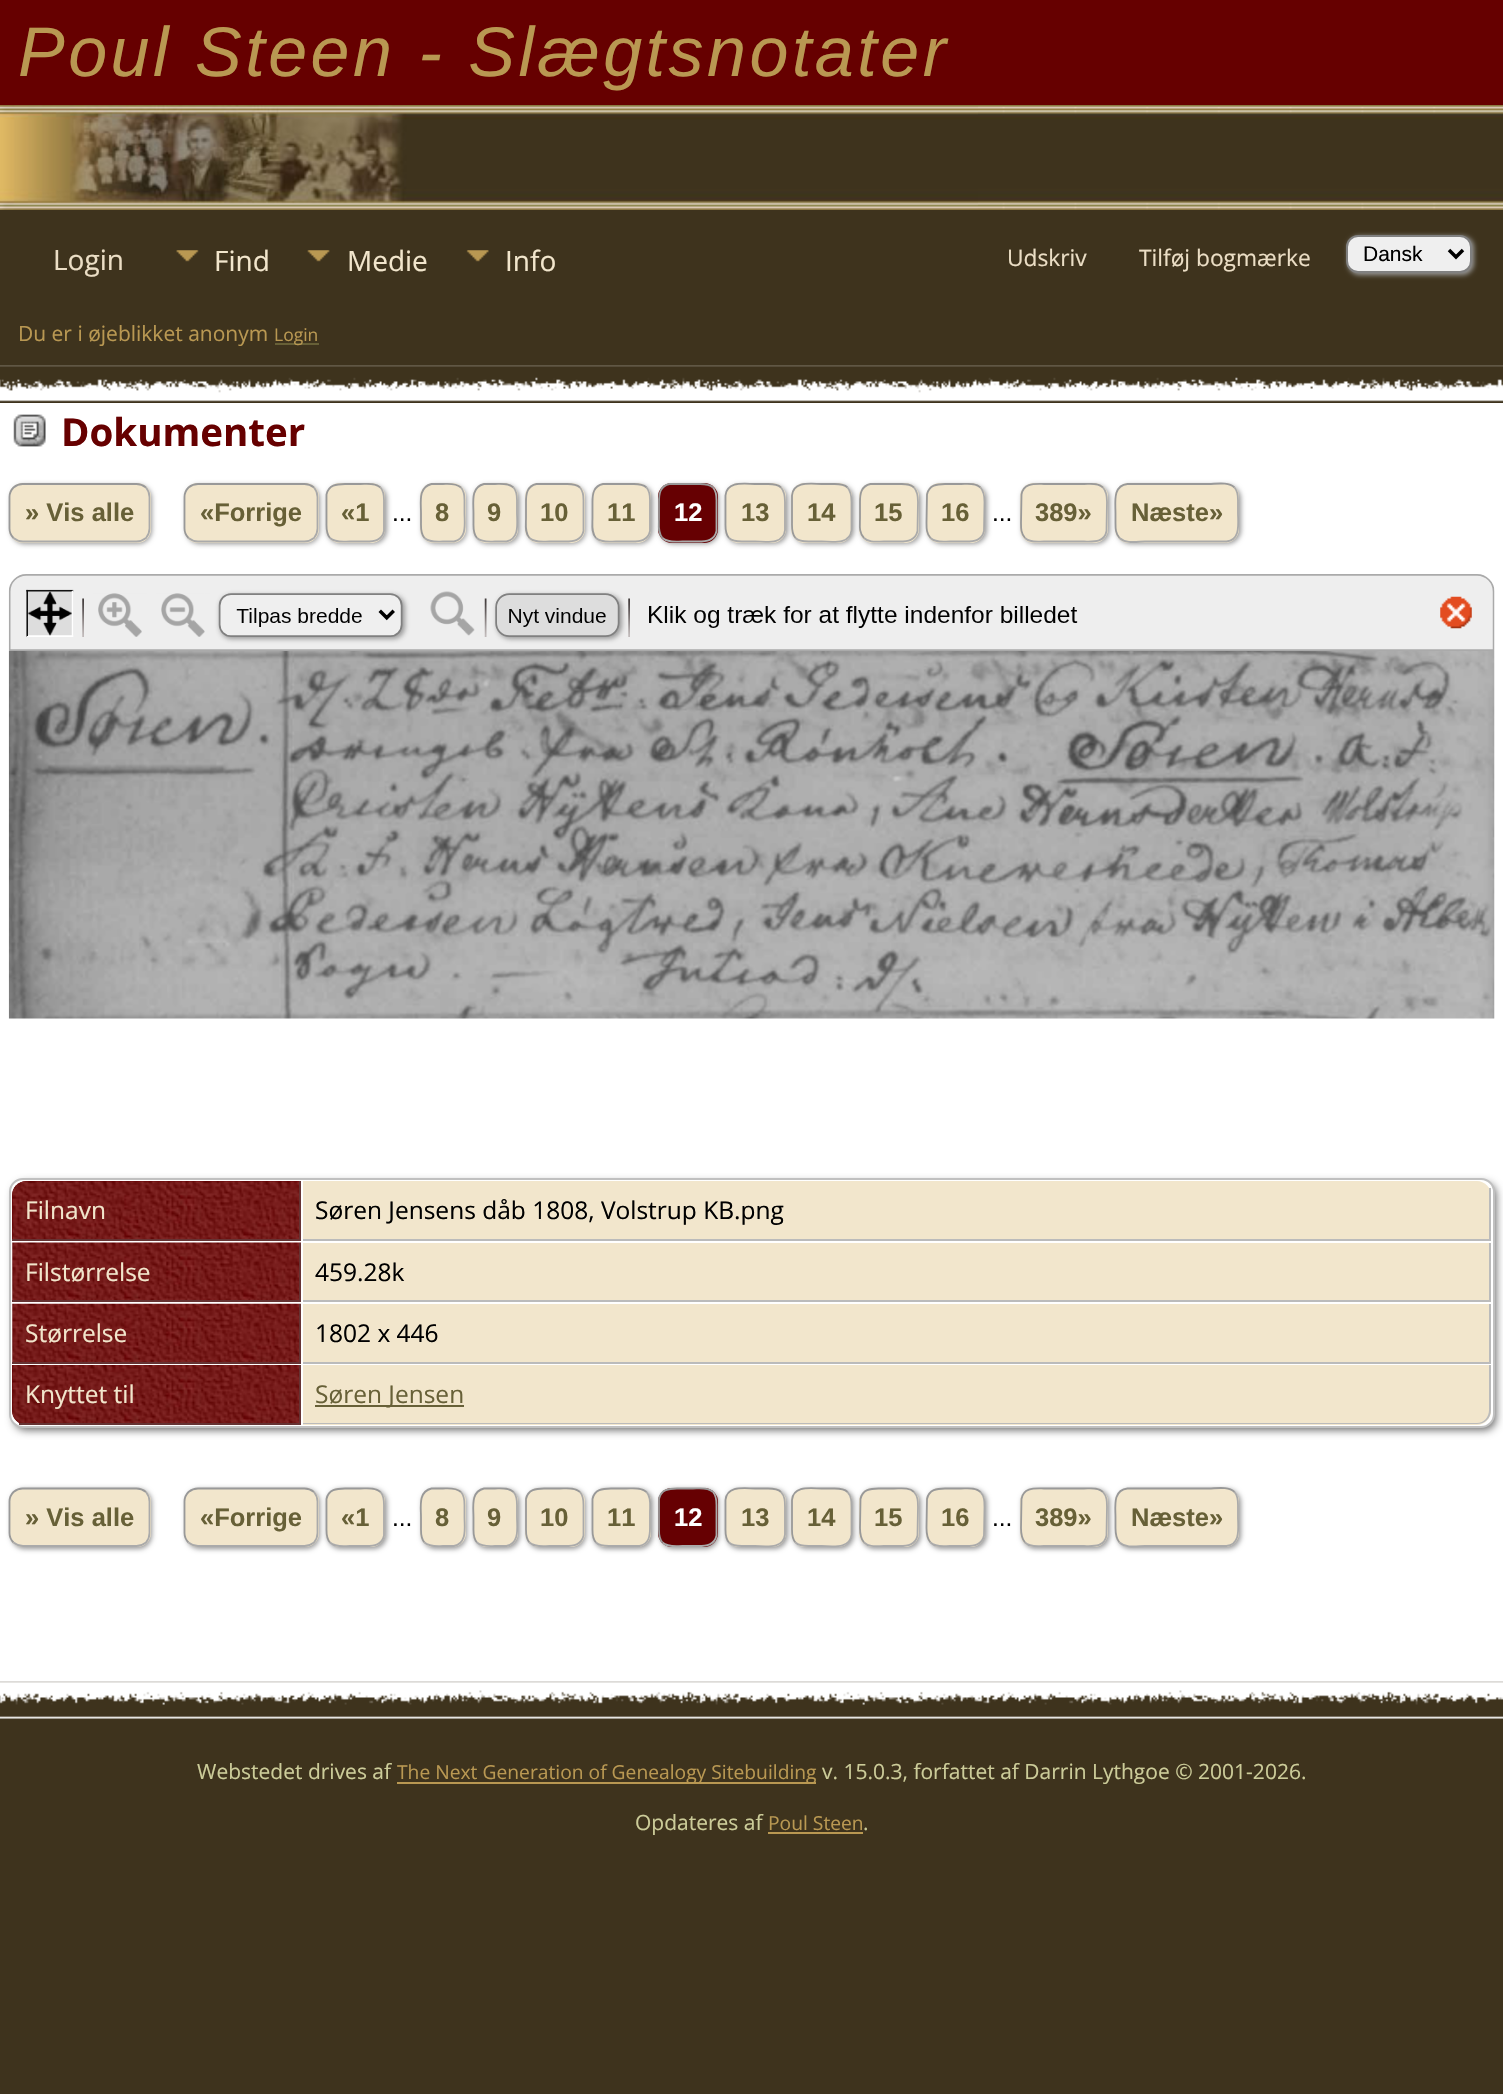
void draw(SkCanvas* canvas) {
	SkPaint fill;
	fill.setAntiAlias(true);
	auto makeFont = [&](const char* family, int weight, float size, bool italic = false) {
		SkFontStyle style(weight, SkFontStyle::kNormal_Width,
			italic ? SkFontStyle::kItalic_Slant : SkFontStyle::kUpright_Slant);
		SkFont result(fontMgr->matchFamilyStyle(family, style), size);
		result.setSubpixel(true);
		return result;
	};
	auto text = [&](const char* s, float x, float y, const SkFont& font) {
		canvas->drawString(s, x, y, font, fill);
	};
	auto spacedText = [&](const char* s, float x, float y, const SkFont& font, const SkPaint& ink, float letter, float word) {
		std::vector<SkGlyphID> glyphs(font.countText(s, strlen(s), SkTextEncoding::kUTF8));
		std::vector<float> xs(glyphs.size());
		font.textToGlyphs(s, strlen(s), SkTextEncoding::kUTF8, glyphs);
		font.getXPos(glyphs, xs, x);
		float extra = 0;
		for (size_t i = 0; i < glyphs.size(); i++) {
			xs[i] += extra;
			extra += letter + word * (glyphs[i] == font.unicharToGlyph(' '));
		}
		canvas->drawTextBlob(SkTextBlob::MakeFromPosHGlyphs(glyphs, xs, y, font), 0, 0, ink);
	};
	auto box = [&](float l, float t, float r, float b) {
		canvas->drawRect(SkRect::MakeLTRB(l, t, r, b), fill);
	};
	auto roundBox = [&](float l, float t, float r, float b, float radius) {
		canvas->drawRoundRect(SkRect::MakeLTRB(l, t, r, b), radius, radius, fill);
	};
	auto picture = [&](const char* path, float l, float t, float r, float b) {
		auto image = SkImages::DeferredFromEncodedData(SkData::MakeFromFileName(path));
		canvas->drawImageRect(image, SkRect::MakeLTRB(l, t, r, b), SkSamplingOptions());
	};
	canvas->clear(0xFF3E331D);
	fill.setColor(0xFF660000);
	box(0, 0, 1503, 105);
	picture("image0.png", 978, 105, 1503, 210);
	picture("image1.png", 0, 105, 978, 210);
	picture("image2.png", 176, 250, 199, 262);
	picture("image3.png", 307, 250, 330, 262);
	picture("image4.png", 466, 250, 489, 262);
	fill.setColor(0xFF999999);
	fill.setMaskFilter(SkMaskFilter::MakeBlur(kNormal_SkBlurStyle, 2.5f));
	canvas->drawRoundRect(SkRect::MakeLTRB(1348, 236, 1474, 275), 12, 12, fill);
	fill.setMaskFilter(nullptr);
	fill.setColor(0xFFEFEFEF);
	canvas->drawRoundRect(SkRect::MakeLTRB(1347, 236, 1471, 272), 11, 11, fill);
	fill.setStyle(SkPaint::kStroke_Style);
	fill.setStrokeWidth(2);
	fill.setColor(0xFF808080);
	canvas->drawRoundRect(SkRect::MakeLTRB(1347, 236, 1471, 272), 11, 11, fill);
	fill.setStrokeWidth(3.5f);
	fill.setColor(0xFF000000);
	canvas->drawPath(SkPathBuilder().moveTo(1449, 250).lineTo(1456, 257).lineTo(1463, 250).detach(), fill);
	fill.setStyle(SkPaint::kFill_Style);
	fill.setColor(0xFF676037);
	box(275, 343, 319, 345);
	picture("image5.png", 0, 365, 1503, 402);
	fill.setColor(0xFFFFFFFF);
	box(0, 403, 1503, 1682);
	picture("image6.png", 13, 414, 46, 447);
	fill.setColor(0xFF999999);
	fill.setMaskFilter(SkMaskFilter::MakeBlur(kNormal_SkBlurStyle, 2.5f));
	canvas->drawRoundRect(SkRect::MakeLTRB(11, 485, 152, 544), 14, 14, fill);
	fill.setMaskFilter(nullptr);
	fill.setColor(0xFFF2E6CC);
	roundBox(9, 483, 151, 543, 14);
	fill.setStyle(SkPaint::kStroke_Style);
	fill.setStrokeWidth(1.8f);
	fill.setColor(0xFFAAAAAA);
	canvas->drawPath(SkPathBuilder().moveTo(146, 487.5f).cubicTo(148, 490, 149.5f, 493.5f, 149.5f, 497).lineTo(149.5f, 528.5f).cubicTo(149.5f, 532, 148, 535.5f, 146, 538).cubicTo(143.5f, 540, 140, 541.5f, 136.5f, 541.5f).lineTo(23, 541.5f).cubicTo(19.5f, 541.5f, 16, 540, 13.5f, 538).detach(), fill);
	fill.setColor(0xFF999999);
	canvas->drawPath(SkPathBuilder().moveTo(13.5f, 538).cubicTo(11, 535.5f, 9.5f, 532, 9.5f, 528.5f).lineTo(9.5f, 497).cubicTo(9.5f, 493.5f, 11, 490, 13.5f, 487.5f).cubicTo(16, 485.5f, 19.5f, 484, 22.5f, 484).lineTo(136.5f, 484).cubicTo(140, 484, 143.5f, 485.5f, 146, 487.5f).detach(), fill);
	fill.setStyle(SkPaint::kFill_Style);
	fill.setMaskFilter(SkMaskFilter::MakeBlur(kNormal_SkBlurStyle, 2.5f));
	canvas->drawRoundRect(SkRect::MakeLTRB(186, 485, 320, 544), 14, 14, fill);
	fill.setMaskFilter(nullptr);
	fill.setColor(0xFFF2E6CC);
	roundBox(184, 483, 319, 543, 14);
	fill.setStyle(SkPaint::kStroke_Style);
	fill.setColor(0xFFAAAAAA);
	canvas->drawPath(SkPathBuilder().moveTo(314, 487.5f).cubicTo(316, 490, 317.5f, 493.5f, 317.5f, 497).lineTo(317.5f, 528.5f).cubicTo(317.5f, 532, 316, 535.5f, 314, 538).cubicTo(311.5f, 540, 308, 541.5f, 304.5f, 541.5f).lineTo(198, 541.5f).cubicTo(194.5f, 541.5f, 191, 540, 188.5f, 538).detach(), fill);
	fill.setColor(0xFF999999);
	canvas->drawPath(SkPathBuilder().moveTo(188.5f, 538).cubicTo(186, 535.5f, 184.5f, 532, 184.5f, 528.5f).lineTo(184.5f, 497).cubicTo(184.5f, 493.5f, 186, 490, 188.5f, 487.5f).cubicTo(191, 485.5f, 194.5f, 484, 198, 484).lineTo(304.5f, 484).cubicTo(308, 484, 311.5f, 485.5f, 314, 487.5f).detach(), fill);
	fill.setStyle(SkPaint::kFill_Style);
	fill.setMaskFilter(SkMaskFilter::MakeBlur(kNormal_SkBlurStyle, 2.5f));
	canvas->drawRoundRect(SkRect::MakeLTRB(327, 485, 387, 544), 14, 14, fill);
	fill.setMaskFilter(nullptr);
	fill.setColor(0xFFF2E6CC);
	roundBox(326, 483, 385, 543, 14);
	fill.setStyle(SkPaint::kStroke_Style);
	fill.setColor(0xFFAAAAAA);
	canvas->drawPath(SkPathBuilder().moveTo(380.5f, 487.5f).cubicTo(384.5f, 492, 384, 497, 384, 502).lineTo(384, 531).cubicTo(382, 540.5f, 374, 541.5f, 366, 541.5f).lineTo(350, 541.5f).cubicTo(343.5f, 541.5f, 335.5f, 543, 330, 538).detach(), fill);
	fill.setColor(0xFF999999);
	canvas->drawPath(SkPathBuilder().moveTo(330, 538).cubicTo(326, 533.5f, 326.5f, 528.5f, 326.5f, 523).lineTo(326.5f, 494.5f).cubicTo(328.5f, 485, 336.5f, 484, 345, 484).lineTo(360.5f, 484).cubicTo(367, 484, 375, 482.5f, 380.5f, 487.5f).detach(), fill);
	fill.setStyle(SkPaint::kFill_Style);
	fill.setMaskFilter(SkMaskFilter::MakeBlur(kNormal_SkBlurStyle, 2.5f));
	canvas->drawRoundRect(SkRect::MakeLTRB(422, 485, 467, 544), 14, 14, fill);
	fill.setMaskFilter(nullptr);
	fill.setColor(0xFFF2E6CC);
	roundBox(420, 483, 466, 543, 14);
	fill.setStyle(SkPaint::kStroke_Style);
	fill.setColor(0xFFAAAAAA);
	canvas->drawPath(SkPathBuilder().moveTo(461, 487.5f).cubicTo(465, 492, 464.5f, 497, 464.5f, 502).lineTo(464.5f, 513).cubicTo(464.5f, 523, 467.5f, 538.5f, 454, 541.5f).lineTo(443, 541.5f).cubicTo(436.5f, 541.5f, 429.5f, 542.5f, 424.5f, 538).detach(), fill);
	fill.setColor(0xFF999999);
	canvas->drawPath(SkPathBuilder().moveTo(424.5f, 538).cubicTo(420.5f, 533.5f, 421, 528.5f, 421, 523).lineTo(421, 513).cubicTo(421, 502.5f, 418, 487, 431.5f, 484).lineTo(443, 484).cubicTo(449, 484, 456, 483, 461, 487.5f).detach(), fill);
	fill.setStyle(SkPaint::kFill_Style);
	fill.setMaskFilter(SkMaskFilter::MakeBlur(kNormal_SkBlurStyle, 2.5f));
	canvas->drawRoundRect(SkRect::MakeLTRB(474, 485, 520, 544), 14, 14, fill);
	fill.setMaskFilter(nullptr);
	fill.setColor(0xFFF2E6CC);
	roundBox(473, 483, 518, 543, 14);
	fill.setStyle(SkPaint::kStroke_Style);
	fill.setColor(0xFFAAAAAA);
	canvas->drawPath(SkPathBuilder().moveTo(513.5f, 487.5f).cubicTo(517.5f, 492, 517, 497, 517, 502).lineTo(517, 513).cubicTo(517, 523, 520, 538.5f, 506.5f, 541.5f).lineTo(495, 541.5f).cubicTo(489, 541.5f, 482, 542.5f, 477, 538).detach(), fill);
	fill.setColor(0xFF999999);
	canvas->drawPath(SkPathBuilder().moveTo(477, 538).cubicTo(473, 533.5f, 473.5f, 528.5f, 473.5f, 523).lineTo(473.5f, 513).cubicTo(473.5f, 502.5f, 470.5f, 487, 484, 484).lineTo(495, 484).cubicTo(501.5f, 484, 508.5f, 483, 513.5f, 487.5f).detach(), fill);
	fill.setStyle(SkPaint::kFill_Style);
	fill.setMaskFilter(SkMaskFilter::MakeBlur(kNormal_SkBlurStyle, 2.5f));
	canvas->drawRoundRect(SkRect::MakeLTRB(527, 485, 586, 544), 14, 14, fill);
	fill.setMaskFilter(nullptr);
	fill.setColor(0xFFF2E6CC);
	roundBox(525, 483, 585, 543, 14);
	fill.setStyle(SkPaint::kStroke_Style);
	fill.setColor(0xFFAAAAAA);
	canvas->drawPath(SkPathBuilder().moveTo(580, 487.5f).cubicTo(584, 492, 583.5f, 497, 583.5f, 502).lineTo(583.5f, 531).cubicTo(581.5f, 540.5f, 573.5f, 541.5f, 565, 541.5f).lineTo(549.5f, 541.5f).cubicTo(543, 541.5f, 535, 543, 529.5f, 538).detach(), fill);
	fill.setColor(0xFF999999);
	canvas->drawPath(SkPathBuilder().moveTo(529.5f, 538).cubicTo(524.5f, 532.5f, 526, 524.5f, 526, 518).lineTo(526, 502).cubicTo(526, 494, 527, 486, 536.5f, 484).lineTo(565, 484).cubicTo(570.5f, 484, 575.5f, 483.5f, 580, 487.5f).detach(), fill);
	fill.setStyle(SkPaint::kFill_Style);
	fill.setMaskFilter(SkMaskFilter::MakeBlur(kNormal_SkBlurStyle, 2.5f));
	canvas->drawRoundRect(SkRect::MakeLTRB(593, 485, 653, 544), 14, 14, fill);
	fill.setMaskFilter(nullptr);
	fill.setColor(0xFFF2E6CC);
	roundBox(592, 483, 651, 543, 14);
	fill.setStyle(SkPaint::kStroke_Style);
	fill.setColor(0xFFAAAAAA);
	canvas->drawPath(SkPathBuilder().moveTo(646.5f, 487.5f).cubicTo(650.5f, 492, 650, 497, 650, 502).lineTo(650, 531).cubicTo(648, 540.5f, 640, 541.5f, 632, 541.5f).lineTo(616, 541.5f).cubicTo(609.5f, 541.5f, 601.5f, 543, 596, 538).detach(), fill);
	fill.setColor(0xFF999999);
	canvas->drawPath(SkPathBuilder().moveTo(596, 538).cubicTo(591, 532.5f, 592.5f, 524.5f, 592.5f, 518).lineTo(592.5f, 502).cubicTo(592.5f, 494, 593.5f, 486, 603, 484).lineTo(632, 484).cubicTo(637, 484, 642, 483.5f, 646.5f, 487.5f).detach(), fill);
	fill.setStyle(SkPaint::kFill_Style);
	fill.setMaskFilter(SkMaskFilter::MakeBlur(kNormal_SkBlurStyle, 2.5f));
	canvas->drawRoundRect(SkRect::MakeLTRB(660, 485, 719, 544), 14, 14, fill);
	fill.setMaskFilter(nullptr);
	fill.setColor(0xFF660002);
	roundBox(658, 483, 718, 543, 14);
	fill.setStyle(SkPaint::kStroke_Style);
	fill.setColor(0xFFAAAAAA);
	canvas->drawPath(SkPathBuilder().moveTo(713, 487.5f).cubicTo(717, 492, 716.5f, 497, 716.5f, 502).lineTo(716.5f, 531).cubicTo(714.5f, 540.5f, 706.5f, 541.5f, 698, 541.5f).lineTo(682.5f, 541.5f).cubicTo(676, 541.5f, 668, 543, 662.5f, 538).detach(), fill);
	fill.setColor(0xFF999999);
	canvas->drawPath(SkPathBuilder().moveTo(662.5f, 538).cubicTo(657.5f, 532.5f, 659, 524.5f, 659, 518).lineTo(659, 502).cubicTo(659, 494, 660, 486, 669.5f, 484).lineTo(698, 484).cubicTo(703.5f, 484, 708.5f, 483.5f, 713, 487.5f).detach(), fill);
	fill.setStyle(SkPaint::kFill_Style);
	fill.setMaskFilter(SkMaskFilter::MakeBlur(kNormal_SkBlurStyle, 2.5f));
	canvas->drawRoundRect(SkRect::MakeLTRB(726, 485, 788, 544), 14, 14, fill);
	fill.setMaskFilter(nullptr);
	fill.setColor(0xFFF2E6CC);
	roundBox(725, 483, 786, 543, 14);
	fill.setStyle(SkPaint::kStroke_Style);
	fill.setColor(0xFFAAAAAA);
	canvas->drawPath(SkPathBuilder().moveTo(781, 487.5f).cubicTo(785, 492, 785, 497, 785, 502).lineTo(785, 530).cubicTo(783.5f, 545, 765.5f, 541.5f, 755, 541.5f).lineTo(744, 541.5f).cubicTo(738.5f, 541.5f, 733.5f, 542, 729, 538).detach(), fill);
	fill.setColor(0xFF999999);
	canvas->drawPath(SkPathBuilder().moveTo(729, 538).cubicTo(725, 533.5f, 725.5f, 528.5f, 725.5f, 523).lineTo(725.5f, 495.5f).cubicTo(727, 480.5f, 745, 484, 755, 484).lineTo(766, 484).cubicTo(771.5f, 484, 777, 483.5f, 781, 487.5f).detach(), fill);
	fill.setStyle(SkPaint::kFill_Style);
	fill.setMaskFilter(SkMaskFilter::MakeBlur(kNormal_SkBlurStyle, 2.5f));
	canvas->drawRoundRect(SkRect::MakeLTRB(793, 485, 854, 544), 14, 14, fill);
	fill.setMaskFilter(nullptr);
	fill.setColor(0xFFF2E6CC);
	roundBox(791, 483, 852, 543, 14);
	fill.setStyle(SkPaint::kStroke_Style);
	fill.setColor(0xFFAAAAAA);
	canvas->drawPath(SkPathBuilder().moveTo(847.5f, 487.5f).cubicTo(851.5f, 492, 851.5f, 497, 851.5f, 502).lineTo(851.5f, 530).cubicTo(850, 545, 832, 541.5f, 821.5f, 541.5f).lineTo(810.5f, 541.5f).cubicTo(805, 541.5f, 800, 542, 795.5f, 538).detach(), fill);
	fill.setColor(0xFF999999);
	canvas->drawPath(SkPathBuilder().moveTo(795.5f, 538).cubicTo(791.5f, 533.5f, 792, 528.5f, 792, 523).lineTo(792, 495.5f).cubicTo(793.5f, 480.5f, 811.5f, 484, 821.5f, 484).lineTo(832.5f, 484).cubicTo(838, 484, 843.5f, 483.5f, 847.5f, 487.5f).detach(), fill);
	fill.setStyle(SkPaint::kFill_Style);
	fill.setMaskFilter(SkMaskFilter::MakeBlur(kNormal_SkBlurStyle, 2.5f));
	canvas->drawRoundRect(SkRect::MakeLTRB(861, 485, 921, 544), 14, 14, fill);
	fill.setMaskFilter(nullptr);
	fill.setColor(0xFFF2E6CC);
	roundBox(859, 483, 919, 543, 14);
	fill.setStyle(SkPaint::kStroke_Style);
	fill.setColor(0xFFAAAAAA);
	canvas->drawPath(SkPathBuilder().moveTo(914, 487.5f).cubicTo(918, 492, 918, 497, 918, 502).lineTo(917.5f, 531).cubicTo(915.5f, 540.5f, 907.5f, 541.5f, 899.5f, 541.5f).lineTo(884, 541.5f).cubicTo(877, 541.5f, 869, 543, 864, 538).detach(), fill);
	fill.setColor(0xFF999999);
	canvas->drawPath(SkPathBuilder().moveTo(864, 538).cubicTo(858.5f, 532.5f, 860, 524.5f, 860, 518).lineTo(860, 502).cubicTo(860, 494, 861, 486, 870.5f, 484).lineTo(899.5f, 484).cubicTo(905, 484, 910, 483.5f, 914, 487.5f).detach(), fill);
	fill.setStyle(SkPaint::kFill_Style);
	fill.setMaskFilter(SkMaskFilter::MakeBlur(kNormal_SkBlurStyle, 2.5f));
	canvas->drawRoundRect(SkRect::MakeLTRB(928, 485, 987, 544), 14, 14, fill);
	fill.setMaskFilter(nullptr);
	fill.setColor(0xFFF2E6CC);
	roundBox(926, 483, 985, 543, 14);
	fill.setStyle(SkPaint::kStroke_Style);
	fill.setColor(0xFFAAAAAA);
	canvas->drawPath(SkPathBuilder().moveTo(980.5f, 487.5f).cubicTo(984.5f, 492, 984.5f, 497, 984.5f, 502).lineTo(984, 531).cubicTo(982, 540.5f, 974, 541.5f, 966, 541.5f).lineTo(950, 541.5f).cubicTo(943.5f, 541.5f, 935.5f, 543, 930.5f, 538).detach(), fill);
	fill.setColor(0xFF999999);
	canvas->drawPath(SkPathBuilder().moveTo(930.5f, 538).cubicTo(926.5f, 533.5f, 926.5f, 528.5f, 926.5f, 523).lineTo(927, 494.5f).cubicTo(929, 485, 937, 484, 945, 484).lineTo(961, 484).cubicTo(967.5f, 484, 975.5f, 482.5f, 980.5f, 487.5f).detach(), fill);
	fill.setStyle(SkPaint::kFill_Style);
	fill.setMaskFilter(SkMaskFilter::MakeBlur(kNormal_SkBlurStyle, 2.5f));
	canvas->drawRoundRect(SkRect::MakeLTRB(1022, 485, 1110, 544), 14, 14, fill);
	fill.setMaskFilter(nullptr);
	fill.setColor(0xFFF2E6CC);
	roundBox(1020, 483, 1108, 543, 14);
	fill.setStyle(SkPaint::kStroke_Style);
	fill.setColor(0xFFAAAAAA);
	canvas->drawPath(SkPathBuilder().moveTo(1103, 487.5f).cubicTo(1107, 492, 1107, 497, 1107, 502).lineTo(1106.5f, 531).cubicTo(1104.5f, 543, 1093, 541.5f, 1084, 541.5f).lineTo(1044, 541.5f).cubicTo(1037.5f, 541.5f, 1030, 543, 1025, 538).detach(), fill);
	fill.setColor(0xFF999999);
	canvas->drawPath(SkPathBuilder().moveTo(1025, 538).cubicTo(1021, 533.5f, 1021, 528.5f, 1021, 523).lineTo(1021.5f, 494.5f).cubicTo(1023.5f, 482.5f, 1035, 484, 1044, 484).lineTo(1084, 484).cubicTo(1090.5f, 484, 1098, 482.5f, 1103, 487.5f).detach(), fill);
	fill.setStyle(SkPaint::kFill_Style);
	fill.setMaskFilter(SkMaskFilter::MakeBlur(kNormal_SkBlurStyle, 2.5f));
	canvas->drawRoundRect(SkRect::MakeLTRB(1117, 485, 1241, 544), 14, 14, fill);
	fill.setMaskFilter(nullptr);
	fill.setColor(0xFFF2E6CC);
	roundBox(1115, 483, 1239, 543, 14);
	fill.setStyle(SkPaint::kStroke_Style);
	fill.setColor(0xFFAAAAAA);
	canvas->drawPath(SkPathBuilder().moveTo(1234.5f, 487.5f).cubicTo(1238.5f, 492, 1238, 497, 1238, 502).lineTo(1238, 513).cubicTo(1238, 523, 1241, 540, 1226.5f, 541.5f).lineTo(1145, 541.5f).cubicTo(1137.5f, 541.5f, 1126, 544, 1119.5f, 538).detach(), fill);
	fill.setColor(0xFF999999);
	canvas->drawPath(SkPathBuilder().moveTo(1119.5f, 538).cubicTo(1115.5f, 533.5f, 1115.5f, 528.5f, 1115.5f, 523).lineTo(1115.5f, 513).cubicTo(1115.5f, 502.5f, 1112.5f, 485.5f, 1127.5f, 484).lineTo(1209, 484).cubicTo(1216, 484, 1228, 481.5f, 1234.5f, 487.5f).detach(), fill);
	picture("image7.png", 8, 574, 1495, 1019);
	fill.setStyle(SkPaint::kFill_Style);
	fill.setColor(0xFF666666);
	fill.setMaskFilter(SkMaskFilter::MakeBlur(kNormal_SkBlurStyle, 4.5f));
	canvas->drawRoundRect(SkRect::MakeLTRB(14, 1183, 1496, 1430), 12, 12, fill);
	fill.setMaskFilter(nullptr);
	fill.setColor(0xFFFFFFFF);
	canvas->drawRoundRect(SkRect::MakeLTRB(10, 1179, 1494, 1427), 13, 13, fill);
	fill.setStyle(SkPaint::kStroke_Style);
	fill.setStrokeWidth(2);
	fill.setColor(0xFFC0C0C0);
	canvas->drawRoundRect(SkRect::MakeLTRB(10, 1179, 1494, 1427), 13, 13, fill);
	fill.setStyle(SkPaint::kFill_Style);
	fill.setColor(0xFF660002);
	canvas->drawPath(SkPathBuilder().moveTo(26, 1181).lineTo(301, 1181).lineTo(301, 1241).lineTo(12, 1241).lineTo(12, 1195).cubicTo(12, 1187.5f, 18.5f, 1181, 26, 1181).close().detach(), fill);
	picture("image8.png", 12, 1181, 299, 1239);
	fill.setColor(0xFF663333);
	box(299, 1181, 301, 1241);
	box(12, 1239, 301, 1241);
	fill.setColor(0xFFF2E6CC);
	canvas->drawPath(SkPathBuilder().moveTo(303, 1181).lineTo(1477, 1181).cubicTo(1484.5f, 1181, 1491, 1187.5f, 1491, 1195).lineTo(1491, 1241).lineTo(303, 1241).close().detach(), fill);
	fill.setColor(0xFFBBBBBB);
	box(1489, 1188, 1491, 1241);
	box(303, 1239, 1491, 1241);
	picture("image9.png", 12, 1242, 301, 1300);
	fill.setColor(0xFF663333);
	box(299, 1243, 301, 1302);
	box(12, 1300, 301, 1302);
	fill.setColor(0xFFF2E6CC);
	box(303, 1243, 1489, 1300);
	fill.setColor(0xFFBBBBBB);
	box(1489, 1243, 1491, 1302);
	box(303, 1300, 1491, 1302);
	picture("image10.png", 12, 1303, 301, 1362);
	fill.setColor(0xFF663333);
	box(299, 1304, 301, 1363);
	box(12, 1362, 301, 1364);
	fill.setColor(0xFFF2E6CC);
	box(303, 1304, 1489, 1362);
	fill.setColor(0xFFBBBBBB);
	box(1489, 1304, 1491, 1363);
	box(303, 1362, 1491, 1364);
	fill.setColor(0xFF660002);
	canvas->drawPath(SkPathBuilder().moveTo(12, 1365).lineTo(301, 1365).lineTo(301, 1425).lineTo(26, 1425).cubicTo(18.5f, 1425, 12, 1418.5f, 12, 1411).close().detach(), fill);
	picture("image11.png", 12, 1365, 299, 1423);
	fill.setColor(0xFF663333);
	box(299, 1365, 301, 1425);
	box(19, 1423, 301, 1425);
	fill.setColor(0xFFF2E6CC);
	canvas->drawPath(SkPathBuilder().moveTo(303, 1365).lineTo(1491, 1365).lineTo(1491, 1411).cubicTo(1491, 1418.5f, 1484.5f, 1425, 1477, 1425).lineTo(303, 1425).close().detach(), fill);
	fill.setColor(0xFFBBBBBB);
	canvas->drawPath(SkPathBuilder(SkPathFillType::kEvenOdd).moveTo(303, 1365).lineTo(1491, 1365).lineTo(1491, 1410).cubicTo(1491, 1418, 1485, 1424, 1477, 1424).lineTo(303, 1424).close().moveTo(303, 1365).lineTo(1489, 1365).lineTo(1489, 1410).cubicTo(1489, 1417, 1484, 1423, 1477, 1423).lineTo(303, 1423).close().detach(), fill);
	fill.setColor(0xFF676037);
	box(315, 1405, 464, 1407);
	fill.setColor(0xFF999999);
	fill.setMaskFilter(SkMaskFilter::MakeBlur(kNormal_SkBlurStyle, 2.5f));
	canvas->drawRoundRect(SkRect::MakeLTRB(11, 1489, 152, 1549), 14, 14, fill);
	fill.setMaskFilter(nullptr);
	fill.setColor(0xFFF2E6CC);
	roundBox(9, 1488, 151, 1547, 14);
	fill.setStyle(SkPaint::kStroke_Style);
	fill.setStrokeWidth(1.8f);
	fill.setColor(0xFFAAAAAA);
	canvas->drawPath(SkPathBuilder().moveTo(146, 1492).cubicTo(148, 1494.5f, 149.5f, 1498, 149.5f, 1501.5f).lineTo(149.5f, 1533).cubicTo(149.5f, 1536.5f, 148, 1540, 146, 1542.5f).cubicTo(143.5f, 1544.5f, 140, 1546, 136.5f, 1546).lineTo(23, 1546).cubicTo(19.5f, 1546, 16, 1544.5f, 13.5f, 1542.5f).detach(), fill);
	fill.setColor(0xFF999999);
	canvas->drawPath(SkPathBuilder().moveTo(13.5f, 1542.5f).cubicTo(11, 1540, 9.5f, 1536.5f, 9.5f, 1533).lineTo(9.5f, 1501.5f).cubicTo(9.5f, 1498, 11, 1494.5f, 13.5f, 1492).cubicTo(16, 1490, 19.5f, 1488.5f, 22.5f, 1488.5f).lineTo(136.5f, 1488.5f).cubicTo(140, 1488.5f, 143.5f, 1490, 146, 1492).detach(), fill);
	fill.setStyle(SkPaint::kFill_Style);
	fill.setMaskFilter(SkMaskFilter::MakeBlur(kNormal_SkBlurStyle, 2.5f));
	canvas->drawRoundRect(SkRect::MakeLTRB(186, 1489, 320, 1549), 14, 14, fill);
	fill.setMaskFilter(nullptr);
	fill.setColor(0xFFF2E6CC);
	roundBox(184, 1488, 319, 1547, 14);
	fill.setStyle(SkPaint::kStroke_Style);
	fill.setColor(0xFFAAAAAA);
	canvas->drawPath(SkPathBuilder().moveTo(314, 1492).cubicTo(316, 1494.5f, 317.5f, 1498, 317.5f, 1501.5f).lineTo(317.5f, 1533).cubicTo(317.5f, 1536.5f, 316, 1540, 314, 1542.5f).cubicTo(311.5f, 1544.5f, 308, 1546, 304.5f, 1546).lineTo(198, 1546).cubicTo(194.5f, 1546, 191, 1544.5f, 188.5f, 1542.5f).detach(), fill);
	fill.setColor(0xFF999999);
	canvas->drawPath(SkPathBuilder().moveTo(188.5f, 1542.5f).cubicTo(186, 1540, 184.5f, 1536.5f, 184.5f, 1533).lineTo(184.5f, 1501.5f).cubicTo(184.5f, 1498, 186, 1494.5f, 188.5f, 1492).cubicTo(191, 1490, 194.5f, 1488.5f, 198, 1488.5f).lineTo(304.5f, 1488.5f).cubicTo(308, 1488.5f, 311.5f, 1490, 314, 1492).detach(), fill);
	fill.setStyle(SkPaint::kFill_Style);
	fill.setMaskFilter(SkMaskFilter::MakeBlur(kNormal_SkBlurStyle, 2.5f));
	canvas->drawRoundRect(SkRect::MakeLTRB(327, 1489, 387, 1549), 14, 14, fill);
	fill.setMaskFilter(nullptr);
	fill.setColor(0xFFF2E6CC);
	roundBox(326, 1488, 385, 1547, 14);
	fill.setStyle(SkPaint::kStroke_Style);
	fill.setColor(0xFFAAAAAA);
	canvas->drawPath(SkPathBuilder().moveTo(380.5f, 1492).cubicTo(384.5f, 1496.5f, 384, 1501.5f, 384, 1507).lineTo(384, 1535.5f).cubicTo(382, 1545, 374, 1546, 366, 1546).lineTo(350, 1546).cubicTo(343.5f, 1546, 335.5f, 1547.5f, 330, 1542.5f).detach(), fill);
	fill.setColor(0xFF999999);
	canvas->drawPath(SkPathBuilder().moveTo(330, 1542.5f).cubicTo(326, 1538, 326.5f, 1533, 326.5f, 1528).lineTo(326.5f, 1499).cubicTo(328.5f, 1489.5f, 336.5f, 1488.5f, 345, 1488.5f).lineTo(360.5f, 1488.5f).cubicTo(367, 1488.5f, 375, 1487, 380.5f, 1492).detach(), fill);
	fill.setStyle(SkPaint::kFill_Style);
	fill.setMaskFilter(SkMaskFilter::MakeBlur(kNormal_SkBlurStyle, 2.5f));
	canvas->drawRoundRect(SkRect::MakeLTRB(422, 1489, 467, 1549), 14, 14, fill);
	fill.setMaskFilter(nullptr);
	fill.setColor(0xFFF2E6CC);
	roundBox(420, 1488, 466, 1547, 14);
	fill.setStyle(SkPaint::kStroke_Style);
	fill.setColor(0xFFAAAAAA);
	canvas->drawPath(SkPathBuilder().moveTo(461, 1492).cubicTo(465, 1496.5f, 464.5f, 1501.5f, 464.5f, 1507).lineTo(464.5f, 1517).cubicTo(464.5f, 1527.5f, 467.5f, 1543, 454, 1546).lineTo(443, 1546).cubicTo(436.5f, 1546, 429.5f, 1547, 424.5f, 1542.5f).detach(), fill);
	fill.setColor(0xFF999999);
	canvas->drawPath(SkPathBuilder().moveTo(424.5f, 1542.5f).cubicTo(420.5f, 1538, 421, 1533, 421, 1528).lineTo(421, 1517).cubicTo(421, 1507, 418, 1491.5f, 431.5f, 1488.5f).lineTo(443, 1488.5f).cubicTo(449, 1488.5f, 456, 1487.5f, 461, 1492).detach(), fill);
	fill.setStyle(SkPaint::kFill_Style);
	fill.setMaskFilter(SkMaskFilter::MakeBlur(kNormal_SkBlurStyle, 2.5f));
	canvas->drawRoundRect(SkRect::MakeLTRB(474, 1489, 520, 1549), 14, 14, fill);
	fill.setMaskFilter(nullptr);
	fill.setColor(0xFFF2E6CC);
	roundBox(473, 1488, 518, 1547, 14);
	fill.setStyle(SkPaint::kStroke_Style);
	fill.setColor(0xFFAAAAAA);
	canvas->drawPath(SkPathBuilder().moveTo(513.5f, 1492).cubicTo(517.5f, 1496.5f, 517, 1501.5f, 517, 1507).lineTo(517, 1517).cubicTo(517, 1527.5f, 520, 1543, 506.5f, 1546).lineTo(495, 1546).cubicTo(489, 1546, 482, 1547, 477, 1542.5f).detach(), fill);
	fill.setColor(0xFF999999);
	canvas->drawPath(SkPathBuilder().moveTo(477, 1542.5f).cubicTo(473, 1538, 473.5f, 1533, 473.5f, 1528).lineTo(473.5f, 1517).cubicTo(473.5f, 1507, 470.5f, 1491.5f, 484, 1488.5f).lineTo(495, 1488.5f).cubicTo(501.5f, 1488.5f, 508.5f, 1487.5f, 513.5f, 1492).detach(), fill);
	fill.setStyle(SkPaint::kFill_Style);
	fill.setMaskFilter(SkMaskFilter::MakeBlur(kNormal_SkBlurStyle, 2.5f));
	canvas->drawRoundRect(SkRect::MakeLTRB(527, 1489, 586, 1549), 14, 14, fill);
	fill.setMaskFilter(nullptr);
	fill.setColor(0xFFF2E6CC);
	roundBox(525, 1488, 585, 1547, 14);
	fill.setStyle(SkPaint::kStroke_Style);
	fill.setColor(0xFFAAAAAA);
	canvas->drawPath(SkPathBuilder().moveTo(580, 1492).cubicTo(584, 1496.5f, 583.5f, 1501.5f, 583.5f, 1507).lineTo(583.5f, 1535.5f).cubicTo(581.5f, 1545, 573.5f, 1546, 565, 1546).lineTo(549.5f, 1546).cubicTo(543, 1546, 535, 1547.5f, 529.5f, 1542.5f).detach(), fill);
	fill.setColor(0xFF999999);
	canvas->drawPath(SkPathBuilder().moveTo(529.5f, 1542.5f).cubicTo(525.5f, 1538, 526, 1533, 526, 1528).lineTo(526, 1499).cubicTo(528, 1489.5f, 536, 1488.5f, 544, 1488.5f).lineTo(560, 1488.5f).cubicTo(566.5f, 1488.5f, 574.5f, 1487, 580, 1492).detach(), fill);
	fill.setStyle(SkPaint::kFill_Style);
	fill.setMaskFilter(SkMaskFilter::MakeBlur(kNormal_SkBlurStyle, 2.5f));
	canvas->drawRoundRect(SkRect::MakeLTRB(593, 1489, 653, 1549), 14, 14, fill);
	fill.setMaskFilter(nullptr);
	fill.setColor(0xFFF2E6CC);
	roundBox(592, 1488, 651, 1547, 14);
	fill.setStyle(SkPaint::kStroke_Style);
	fill.setColor(0xFFAAAAAA);
	canvas->drawPath(SkPathBuilder().moveTo(646.5f, 1492).cubicTo(651.5f, 1497.5f, 650, 1505.5f, 650, 1512).lineTo(650, 1528).cubicTo(650, 1536, 649, 1544, 639.5f, 1546).lineTo(611, 1546).cubicTo(605.5f, 1546, 600.5f, 1546.5f, 596, 1542.5f).detach(), fill);
	fill.setColor(0xFF999999);
	canvas->drawPath(SkPathBuilder().moveTo(596, 1542.5f).cubicTo(592, 1538, 592.5f, 1533, 592.5f, 1528).lineTo(592.5f, 1499).cubicTo(594.5f, 1489.5f, 602.5f, 1488.5f, 611, 1488.5f).lineTo(626.5f, 1488.5f).cubicTo(633, 1488.5f, 641, 1487, 646.5f, 1492).detach(), fill);
	fill.setStyle(SkPaint::kFill_Style);
	fill.setMaskFilter(SkMaskFilter::MakeBlur(kNormal_SkBlurStyle, 2.5f));
	canvas->drawRoundRect(SkRect::MakeLTRB(660, 1489, 719, 1549), 14, 14, fill);
	fill.setMaskFilter(nullptr);
	fill.setColor(0xFF660002);
	roundBox(658, 1488, 718, 1547, 14);
	fill.setStyle(SkPaint::kStroke_Style);
	fill.setColor(0xFFAAAAAA);
	canvas->drawPath(SkPathBuilder().moveTo(713, 1492).cubicTo(717, 1496.5f, 716.5f, 1501.5f, 716.5f, 1507).lineTo(716.5f, 1535.5f).cubicTo(714.5f, 1545, 706.5f, 1546, 698, 1546).lineTo(682.5f, 1546).cubicTo(676, 1546, 668, 1547.5f, 662.5f, 1542.5f).detach(), fill);
	fill.setColor(0xFF999999);
	canvas->drawPath(SkPathBuilder().moveTo(662.5f, 1542.5f).cubicTo(658.5f, 1538, 659, 1533, 659, 1528).lineTo(659, 1499).cubicTo(661, 1489.5f, 669, 1488.5f, 677, 1488.5f).lineTo(693, 1488.5f).cubicTo(699.5f, 1488.5f, 707.5f, 1487, 713, 1492).detach(), fill);
	fill.setStyle(SkPaint::kFill_Style);
	fill.setMaskFilter(SkMaskFilter::MakeBlur(kNormal_SkBlurStyle, 2.5f));
	canvas->drawRoundRect(SkRect::MakeLTRB(726, 1489, 788, 1549), 14, 14, fill);
	fill.setMaskFilter(nullptr);
	fill.setColor(0xFFF2E6CC);
	roundBox(725, 1488, 786, 1547, 14);
	fill.setStyle(SkPaint::kStroke_Style);
	fill.setColor(0xFFAAAAAA);
	canvas->drawPath(SkPathBuilder().moveTo(781, 1492).cubicTo(785, 1496.5f, 785, 1501.5f, 785, 1507).lineTo(785, 1534.5f).cubicTo(783.5f, 1549.5f, 765.5f, 1546, 755, 1546).lineTo(744, 1546).cubicTo(738.5f, 1546, 733.5f, 1546.5f, 729, 1542.5f).detach(), fill);
	fill.setColor(0xFF999999);
	canvas->drawPath(SkPathBuilder().moveTo(729, 1542.5f).cubicTo(725, 1538, 725.5f, 1533, 725.5f, 1528).lineTo(725.5f, 1500).cubicTo(727, 1485, 745, 1488.5f, 755, 1488.5f).lineTo(766, 1488.5f).cubicTo(771.5f, 1488.5f, 777, 1488, 781, 1492).detach(), fill);
	fill.setStyle(SkPaint::kFill_Style);
	fill.setMaskFilter(SkMaskFilter::MakeBlur(kNormal_SkBlurStyle, 2.5f));
	canvas->drawRoundRect(SkRect::MakeLTRB(793, 1489, 854, 1549), 14, 14, fill);
	fill.setMaskFilter(nullptr);
	fill.setColor(0xFFF2E6CC);
	roundBox(791, 1488, 852, 1547, 14);
	fill.setStyle(SkPaint::kStroke_Style);
	fill.setColor(0xFFAAAAAA);
	canvas->drawPath(SkPathBuilder().moveTo(847.5f, 1492).cubicTo(851.5f, 1496.5f, 851.5f, 1501.5f, 851.5f, 1507).lineTo(851.5f, 1534.5f).cubicTo(850, 1549.5f, 832, 1546, 821.5f, 1546).lineTo(810.5f, 1546).cubicTo(805, 1546, 800, 1546.5f, 795.5f, 1542.5f).detach(), fill);
	fill.setColor(0xFF999999);
	canvas->drawPath(SkPathBuilder().moveTo(795.5f, 1542.5f).cubicTo(791.5f, 1538, 792, 1533, 792, 1528).lineTo(792, 1500).cubicTo(793.5f, 1485, 811.5f, 1488.5f, 821.5f, 1488.5f).lineTo(832.5f, 1488.5f).cubicTo(838, 1488.5f, 843.5f, 1488, 847.5f, 1492).detach(), fill);
	fill.setStyle(SkPaint::kFill_Style);
	fill.setMaskFilter(SkMaskFilter::MakeBlur(kNormal_SkBlurStyle, 2.5f));
	canvas->drawRoundRect(SkRect::MakeLTRB(861, 1489, 921, 1549), 14, 14, fill);
	fill.setMaskFilter(nullptr);
	fill.setColor(0xFFF2E6CC);
	roundBox(859, 1488, 919, 1547, 14);
	fill.setStyle(SkPaint::kStroke_Style);
	fill.setColor(0xFFAAAAAA);
	canvas->drawPath(SkPathBuilder().moveTo(914, 1492).cubicTo(918, 1496.5f, 918, 1501.5f, 918, 1507).lineTo(917.5f, 1535.5f).cubicTo(915.5f, 1545, 907.5f, 1546, 899.5f, 1546).lineTo(884, 1546).cubicTo(877, 1546, 869, 1547.5f, 864, 1542.5f).detach(), fill);
	fill.setColor(0xFF999999);
	canvas->drawPath(SkPathBuilder().moveTo(864, 1542.5f).cubicTo(860, 1538, 860, 1533, 860, 1528).lineTo(860.5f, 1499).cubicTo(862.5f, 1489.5f, 870.5f, 1488.5f, 878.5f, 1488.5f).lineTo(894, 1488.5f).cubicTo(901, 1488.5f, 909, 1487, 914, 1492).detach(), fill);
	fill.setStyle(SkPaint::kFill_Style);
	fill.setMaskFilter(SkMaskFilter::MakeBlur(kNormal_SkBlurStyle, 2.5f));
	canvas->drawRoundRect(SkRect::MakeLTRB(928, 1489, 987, 1549), 14, 14, fill);
	fill.setMaskFilter(nullptr);
	fill.setColor(0xFFF2E6CC);
	roundBox(926, 1488, 985, 1547, 14);
	fill.setStyle(SkPaint::kStroke_Style);
	fill.setColor(0xFFAAAAAA);
	canvas->drawPath(SkPathBuilder().moveTo(980.5f, 1492).cubicTo(984.5f, 1496.5f, 984.5f, 1501.5f, 984.5f, 1507).lineTo(984, 1535.5f).cubicTo(982, 1545, 974, 1546, 966, 1546).lineTo(950, 1546).cubicTo(943.5f, 1546, 935.5f, 1547.5f, 930.5f, 1542.5f).detach(), fill);
	fill.setColor(0xFF999999);
	canvas->drawPath(SkPathBuilder().moveTo(930.5f, 1542.5f).cubicTo(926.5f, 1538, 926.5f, 1533, 926.5f, 1528).lineTo(927, 1499).cubicTo(929, 1489.5f, 937, 1488.5f, 945, 1488.5f).lineTo(961, 1488.5f).cubicTo(967.5f, 1488.5f, 975.5f, 1487, 980.5f, 1492).detach(), fill);
	fill.setStyle(SkPaint::kFill_Style);
	fill.setMaskFilter(SkMaskFilter::MakeBlur(kNormal_SkBlurStyle, 2.5f));
	canvas->drawRoundRect(SkRect::MakeLTRB(1022, 1489, 1110, 1549), 14, 14, fill);
	fill.setMaskFilter(nullptr);
	fill.setColor(0xFFF2E6CC);
	roundBox(1020, 1488, 1108, 1547, 14);
	fill.setStyle(SkPaint::kStroke_Style);
	fill.setColor(0xFFAAAAAA);
	canvas->drawPath(SkPathBuilder().moveTo(1103, 1492).cubicTo(1107, 1496.5f, 1107, 1501.5f, 1107, 1507).lineTo(1106.5f, 1535.5f).cubicTo(1104.5f, 1547.5f, 1093, 1546, 1084, 1546).lineTo(1044, 1546).cubicTo(1037.5f, 1546, 1030, 1547.5f, 1025, 1542.5f).detach(), fill);
	fill.setColor(0xFF999999);
	canvas->drawPath(SkPathBuilder().moveTo(1025, 1542.5f).cubicTo(1021, 1538, 1021, 1533, 1021, 1528).lineTo(1021.5f, 1499).cubicTo(1023.5f, 1487, 1035, 1488.5f, 1044, 1488.5f).lineTo(1084, 1488.5f).cubicTo(1090.5f, 1488.5f, 1098, 1487, 1103, 1492).detach(), fill);
	fill.setStyle(SkPaint::kFill_Style);
	fill.setMaskFilter(SkMaskFilter::MakeBlur(kNormal_SkBlurStyle, 2.5f));
	canvas->drawRoundRect(SkRect::MakeLTRB(1117, 1489, 1241, 1549), 14, 14, fill);
	fill.setMaskFilter(nullptr);
	fill.setColor(0xFFF2E6CC);
	roundBox(1115, 1488, 1239, 1547, 14);
	fill.setStyle(SkPaint::kStroke_Style);
	fill.setColor(0xFFAAAAAA);
	canvas->drawPath(SkPathBuilder().moveTo(1234.5f, 1492).cubicTo(1238.5f, 1496.5f, 1238, 1501.5f, 1238, 1507).lineTo(1238, 1517).cubicTo(1238, 1527.5f, 1241, 1544.5f, 1226.5f, 1546).lineTo(1145, 1546).cubicTo(1137.5f, 1546, 1126, 1548.5f, 1119.5f, 1542.5f).detach(), fill);
	fill.setColor(0xFF999999);
	canvas->drawPath(SkPathBuilder().moveTo(1119.5f, 1542.5f).cubicTo(1115.5f, 1538, 1115.5f, 1533, 1115.5f, 1528).lineTo(1115.5f, 1517).cubicTo(1115.5f, 1507, 1112.5f, 1490, 1127.5f, 1488.5f).lineTo(1209, 1488.5f).cubicTo(1216, 1488.5f, 1228, 1486, 1234.5f, 1492).detach(), fill);
	picture("image12.png", 0, 1681, 1503, 1719);
	fill.setStyle(SkPaint::kFill_Style);
	fill.setColor(0xFFB99852);
	box(397, 1782, 816, 1784);
	box(768, 1832, 863, 1834);
	auto font1 = makeFont("Liberation Sans", 400, 70, true);
	spacedText("Poul Steen - Slægtsnotater", 18, 76, font1, fill, 3.5f, 0);
	auto font2 = makeFont("Open Sans", 400, 28);
	fill.setColor(0xFFEBDEC5);
	text("Login", 53, 270, font2);
	fill.setColor(0xFFF2E6CC);
	text("Find", 214, 271, font2);
	text("Medie", 347, 271, font2);
	text("Info", 505, 271, font2);
	auto font3 = makeFont("Open Sans", 400, 22.75f);
	fill.setColor(0xFFEBDEC5);
	text("Udskriv", 1007, 266, font3);
	text("Tilføj bogmærke", 1139, 266, font3);
	auto font4 = makeFont("Liberation Sans", 400, 21);
	fill.setColor(0xFF000000);
	text("Dansk", 1363, 261, font4);
	auto font5 = makeFont("Open Sans", 400, 21);
	fill.setColor(0xFFB99852);
	text("Du er i øjeblikket anonym", 18, 341, font5);
	auto font6 = makeFont("Open Sans", 400, 17.5f);
	text("Login", 274, 341, font6);
	auto font7 = makeFont("Open Sans", 700, 38.5f);
	fill.setColor(0xFF660000);
	text("Dokumenter", 61, 446, font7);
	auto font8 = makeFont("Liberation Sans", 700, 25.5f);
	fill.setColor(0xFF676037);
	text("» Vis alle", 25, 521, font8);
	text("«Forrige", 200, 521, font8);
	text("«1", 341, 521, font8);
	auto font9 = makeFont("Liberation Sans", 400, 24.5f);
	fill.setColor(0xFF000000);
	text("...", 392, 521, font9);
	fill.setColor(0xFF676037);
	text("8", 435, 521, font8);
	text("9", 487, 521, font8);
	text("10", 540, 521, font8);
	text("11", 607, 521, font8);
	fill.setColor(0xFFFFFFFF);
	text("12", 674, 521, font8);
	fill.setColor(0xFF676037);
	text("13", 741, 521, font8);
	text("14", 807, 521, font8);
	text("15", 874, 521, font8);
	text("16", 941, 521, font8);
	fill.setColor(0xFF000000);
	text("...", 992, 521, font9);
	fill.setColor(0xFF676037);
	text("389»", 1035, 521, font8);
	text("Næste»", 1131, 521, font8);
	auto font10 = makeFont("Open Sans", 400, 24.5f);
	fill.setColor(0xFFF2E6CC);
	text("Filnavn", 25, 1219, font10);
	fill.setColor(0xFF000000);
	text("Søren Jensens dåb 1808, Volstrup KB.png", 315, 1219, font10);
	fill.setColor(0xFFF2E6CC);
	text("Filstørrelse", 25, 1281, font10);
	fill.setColor(0xFF000000);
	text("459.28k", 315, 1281, font10);
	fill.setColor(0xFFF2E6CC);
	text("Størrelse", 25, 1342, font10);
	fill.setColor(0xFF000000);
	text("1802 x 446", 315, 1342, font10);
	fill.setColor(0xFFF2E6CC);
	text("Knyttet til", 25, 1403, font10);
	fill.setColor(0xFF676037);
	text("Søren Jensen", 315, 1403, font10);
	text("» Vis alle", 25, 1526, font8);
	text("«Forrige", 200, 1526, font8);
	text("«1", 341, 1526, font8);
	fill.setColor(0xFF000000);
	text("...", 392, 1526, font9);
	fill.setColor(0xFF676037);
	text("8", 435, 1526, font8);
	text("9", 487, 1526, font8);
	text("10", 540, 1526, font8);
	text("11", 607, 1526, font8);
	fill.setColor(0xFFFFFFFF);
	text("12", 674, 1526, font8);
	fill.setColor(0xFF676037);
	text("13", 741, 1526, font8);
	text("14", 807, 1526, font8);
	text("15", 874, 1526, font8);
	text("16", 941, 1526, font8);
	fill.setColor(0xFF000000);
	text("...", 992, 1526, font9);
	fill.setColor(0xFF676037);
	text("389»", 1035, 1526, font8);
	text("Næste»", 1131, 1526, font8);
	fill.setColor(0xFFCCCC99);
	text("Webstedet drives af", 197, 1779, font5);
	auto font11 = makeFont("Open Sans", 400, 19.25f);
	fill.setColor(0xFFB99852);
	text("The Next Generation of Genealogy Sitebuilding", 397, 1779, font11);
	fill.setColor(0xFFCCCC99);
	text("v. 15.0.3, forfattet af Darrin Lythgoe © 2001-2026.", 822, 1779, font5);
	text("Opdateres af", 635, 1830, font5);
	fill.setColor(0xFFB99852);
	text("Poul Steen", 768, 1830, font11);
	fill.setColor(0xFFCCCC99);
	text(".", 863, 1830, font5);
}
